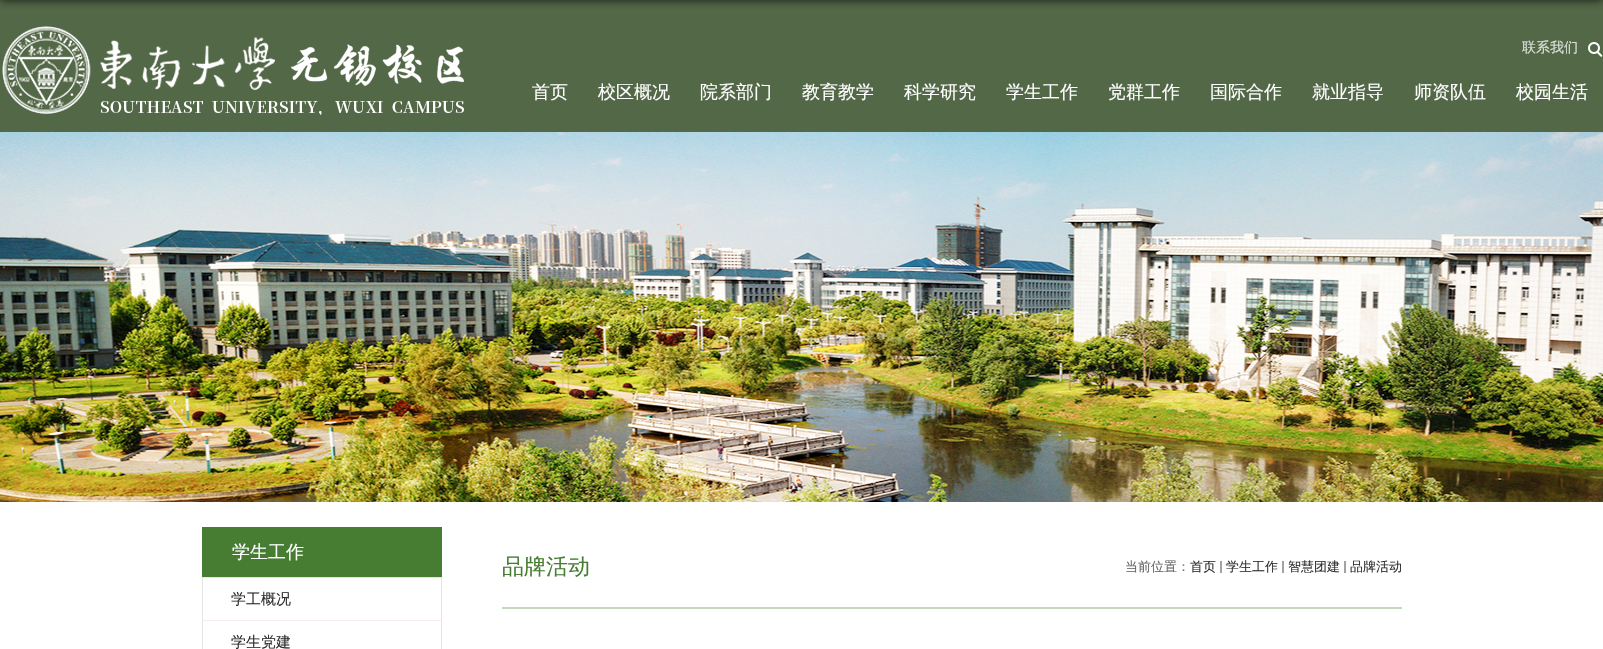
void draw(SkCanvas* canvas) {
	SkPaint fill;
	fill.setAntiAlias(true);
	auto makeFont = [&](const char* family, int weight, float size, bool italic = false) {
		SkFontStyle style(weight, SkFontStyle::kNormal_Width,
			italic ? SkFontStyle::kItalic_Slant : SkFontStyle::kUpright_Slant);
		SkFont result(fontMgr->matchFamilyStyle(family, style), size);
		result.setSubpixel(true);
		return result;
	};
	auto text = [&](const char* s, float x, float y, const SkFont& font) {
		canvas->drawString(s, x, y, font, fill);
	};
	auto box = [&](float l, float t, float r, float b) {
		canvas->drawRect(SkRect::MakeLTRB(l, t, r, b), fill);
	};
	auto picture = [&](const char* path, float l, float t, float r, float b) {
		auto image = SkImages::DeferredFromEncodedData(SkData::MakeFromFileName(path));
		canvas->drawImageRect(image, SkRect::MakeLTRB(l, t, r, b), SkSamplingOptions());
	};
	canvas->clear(0xFFFFFFFF);
	fill.setColor(0xFF536847);
	box(0, 0, 1603, 132);
	fill.setColor(0xCC000000);
	fill.setMaskFilter(SkMaskFilter::MakeBlur(kNormal_SkBlurStyle, 5));
	canvas->drawRect(SkRect::MakeLTRB(0, -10, 1603, 0), fill);
	fill.setMaskFilter(nullptr);
	picture("image0.png", 2, 26, 464, 115);
	picture("image1.png", 1588, 42, 1603, 57);
	picture("image2.png", 0, 132, 1603, 502);
	fill.setColor(0xFF467D33);
	box(202, 527, 442, 577);
	fill.setStyle(SkPaint::kStroke_Style);
	fill.setStrokeWidth(1);
	fill.setColor(0xFFE4E4E4);
	canvas->drawRect(SkRect::MakeLTRB(202.5f, 577.5f, 441.5f, 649.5f), fill);
	fill.setStyle(SkPaint::kFill_Style);
	fill.setColor(0xFFF6EAEA);
	box(203, 620, 441, 621);
	fill.setColor(0xFFC7D8C1);
	box(502, 607, 1402, 609);
	fill.setColor(0xFFA2A2A2);
	box(1220, 561, 1222, 573);
	box(1282, 561, 1284, 573);
	box(1344, 561, 1346, 573);
	auto font1 = makeFont("WenQuanYi Zen Hei", 500, 14);
	fill.setColor(0xFFDDE1DA);
	text("联系我们", 1522, 52, font1);
	auto font2 = makeFont("WenQuanYi Zen Hei", 500, 18);
	fill.setColor(0xFFFFFFFF);
	text("首页", 532, 98, font2);
	text("校区概况", 598, 98, font2);
	text("院系部门", 700, 98, font2);
	text("教育教学", 802, 98, font2);
	text("科学研究", 904, 98, font2);
	text("学生工作", 1006, 98, font2);
	text("党群工作", 1108, 98, font2);
	text("国际合作", 1210, 98, font2);
	text("就业指导", 1312, 98, font2);
	text("师资队伍", 1414, 98, font2);
	text("校园生活", 1516, 98, font2);
	text("学生工作", 232, 558, font2);
	auto font3 = makeFont("WenQuanYi Zen Hei", 500, 15);
	fill.setColor(0xFF2F2F2F);
	text("学工概况", 231, 604, font3);
	text("学生党建", 231, 647, font3);
	auto font4 = makeFont("WenQuanYi Zen Hei", 500, 22);
	fill.setColor(0xFF467D33);
	text("品牌活动", 502, 574, font4);
	auto font5 = makeFont("WenQuanYi Zen Hei", 500, 13);
	fill.setColor(0xFF666666);
	text("当前位置：", 1125, 571, font5);
	fill.setColor(0xFF2F2F2F);
	text("首页", 1190, 571, font5);
	text("学生工作", 1226, 571, font5);
	text("智慧团建", 1288, 571, font5);
	text("品牌活动", 1350, 571, font5);
}
